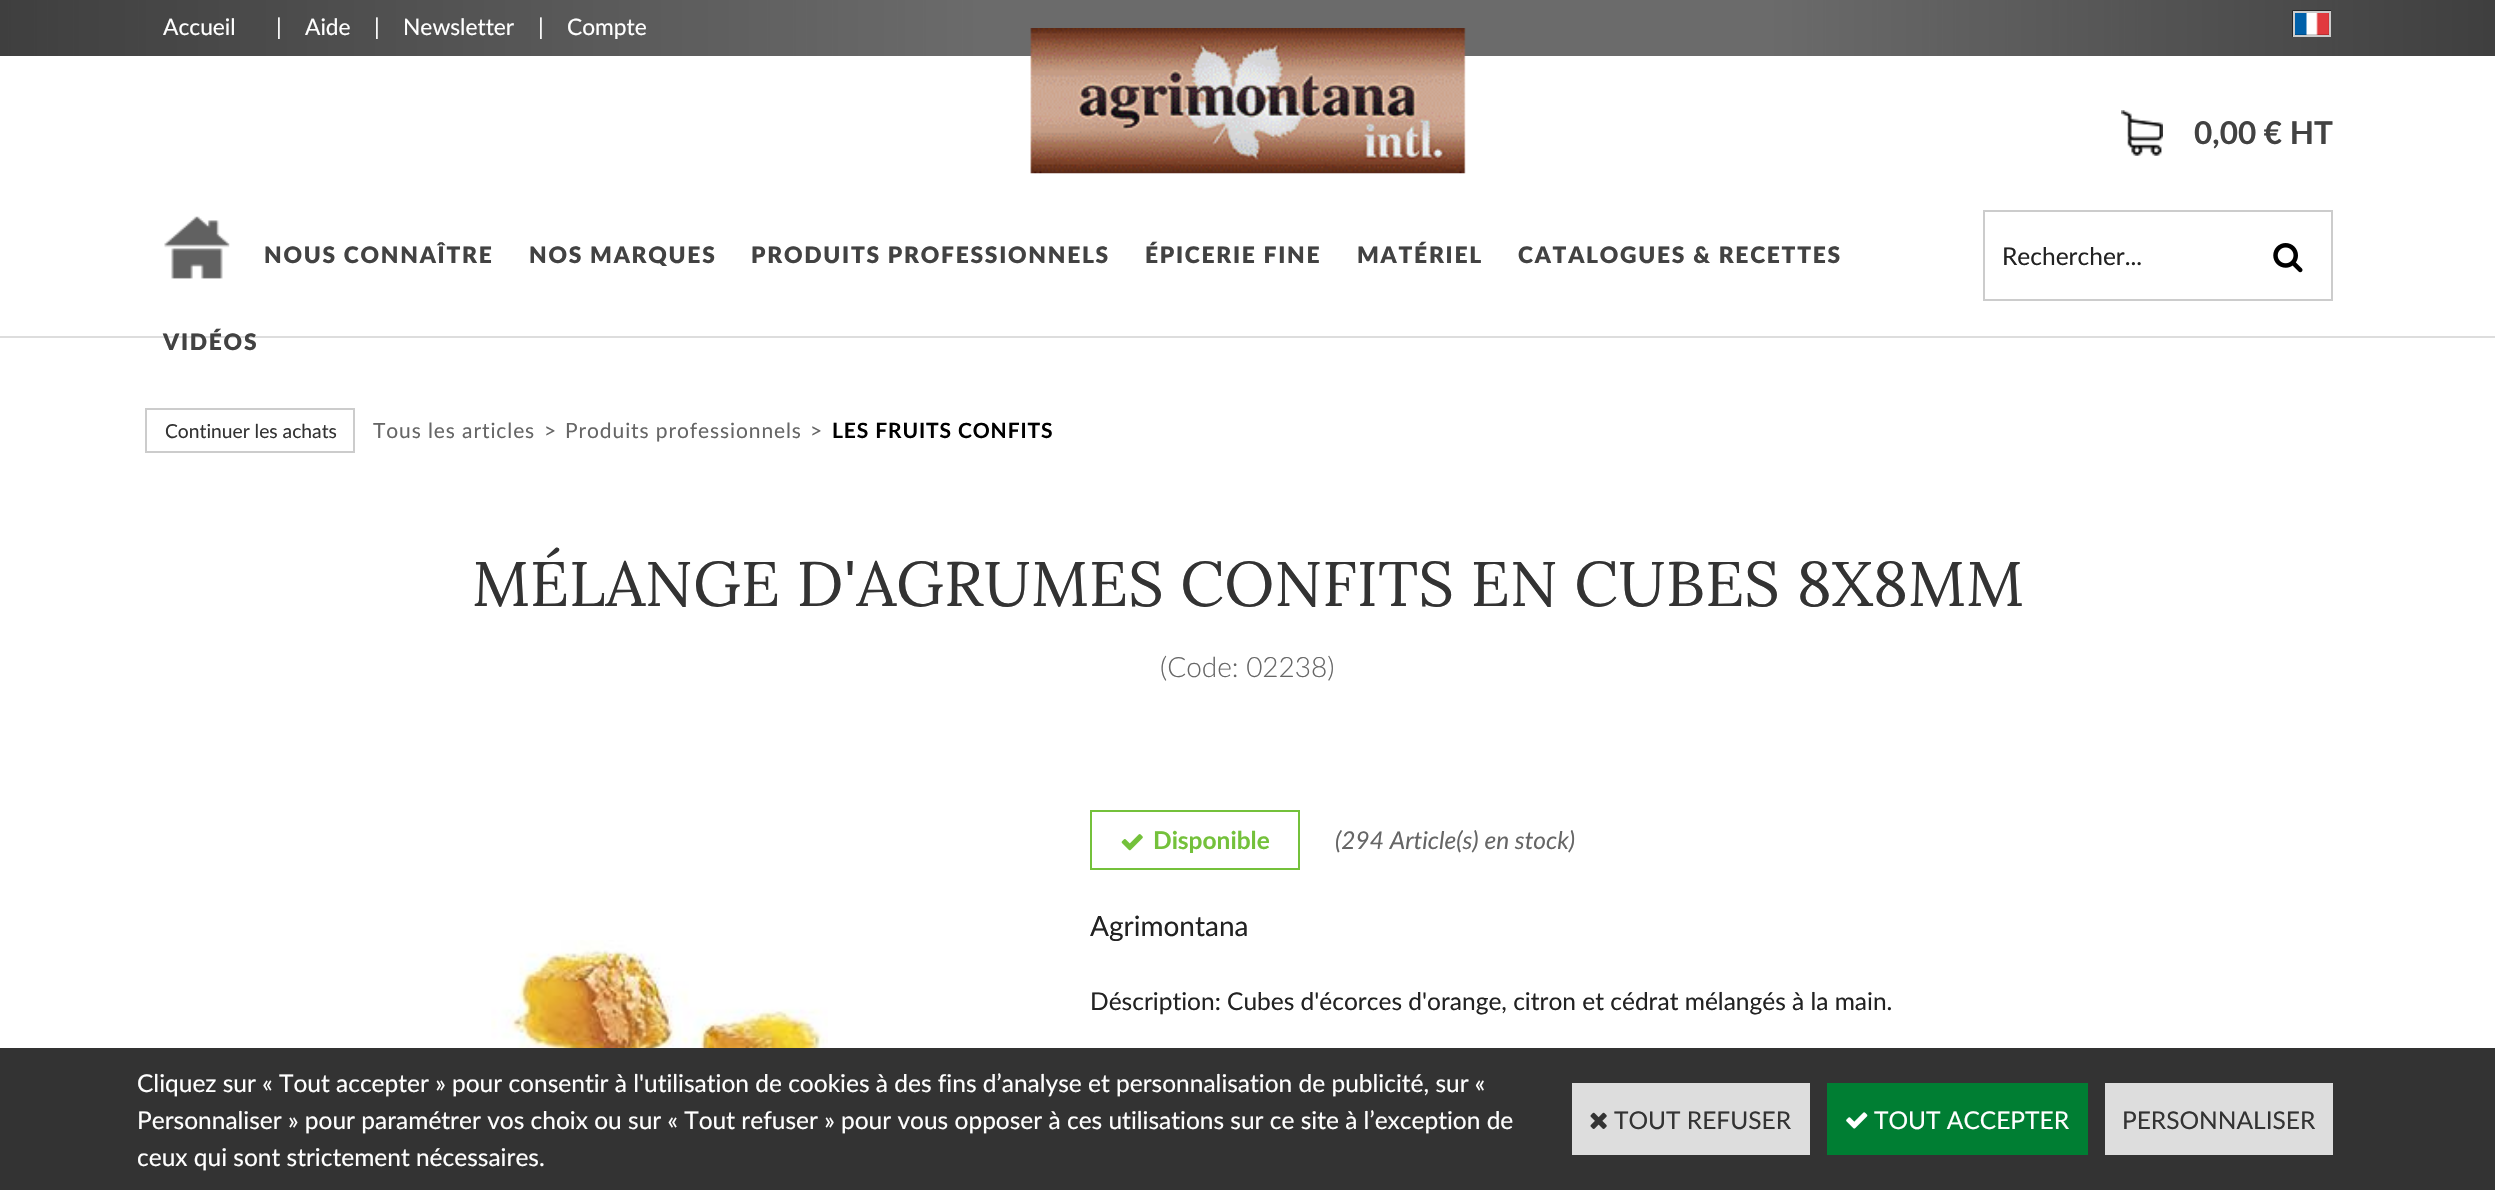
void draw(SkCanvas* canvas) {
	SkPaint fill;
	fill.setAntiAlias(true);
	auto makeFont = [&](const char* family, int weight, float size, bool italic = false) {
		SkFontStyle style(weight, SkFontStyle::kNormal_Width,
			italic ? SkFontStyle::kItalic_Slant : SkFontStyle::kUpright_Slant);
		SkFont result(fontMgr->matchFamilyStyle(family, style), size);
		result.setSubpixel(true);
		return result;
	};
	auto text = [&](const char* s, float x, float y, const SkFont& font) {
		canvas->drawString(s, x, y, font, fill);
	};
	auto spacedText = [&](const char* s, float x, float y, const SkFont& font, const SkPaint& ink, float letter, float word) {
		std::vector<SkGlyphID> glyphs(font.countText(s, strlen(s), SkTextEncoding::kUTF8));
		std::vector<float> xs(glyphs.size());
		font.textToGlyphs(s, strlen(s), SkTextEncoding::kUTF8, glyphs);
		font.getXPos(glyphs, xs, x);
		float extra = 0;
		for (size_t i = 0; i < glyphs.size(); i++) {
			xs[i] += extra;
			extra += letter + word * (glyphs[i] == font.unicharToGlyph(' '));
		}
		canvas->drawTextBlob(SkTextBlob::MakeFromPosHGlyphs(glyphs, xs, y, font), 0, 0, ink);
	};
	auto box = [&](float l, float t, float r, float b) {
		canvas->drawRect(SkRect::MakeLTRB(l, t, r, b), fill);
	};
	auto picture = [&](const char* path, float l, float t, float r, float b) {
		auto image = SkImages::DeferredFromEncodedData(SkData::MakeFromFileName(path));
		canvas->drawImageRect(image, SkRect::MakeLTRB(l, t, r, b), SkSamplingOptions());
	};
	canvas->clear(0xFFFFFFFF);
	picture("image0.png", 0, 0, 2495, 56);
	fill.setColor(0xFFDDDDDD);
	box(0, 336, 2495, 338);
	picture("image1.png", 2292, 10, 2331, 37);
	fill.setStyle(SkPaint::kStroke_Style);
	fill.setStrokeWidth(2);
	fill.setColor(0xFFCCCCCC);
	canvas->drawRect(SkRect::MakeLTRB(2294, 12, 2330, 36), fill);
	picture("image2.png", 1030, 28, 1466, 174);
	picture("image3.png", 2121, 110, 2163, 156);
	picture("image4.png", 164, 216, 230, 279);
	canvas->drawRect(SkRect::MakeLTRB(1984, 211, 2332, 300), fill);
	picture("image5.png", 2273, 243, 2303, 273);
	canvas->drawRect(SkRect::MakeLTRB(146, 409, 354, 452), fill);
	picture("image6.png", 491, 940, 828, 1048);
	fill.setColor(0xFF74C13B);
	canvas->drawRect(SkRect::MakeLTRB(1091, 811, 1299, 869), fill);
	picture("image7.png", 1121, 834, 1143, 851);
	fill.setStyle(SkPaint::kFill_Style);
	fill.setColor(0xFF333333);
	box(0, 1048, 2495, 1190);
	fill.setColor(0xFFDDDDDD);
	box(1572, 1083, 1810, 1155);
	picture("image8.png", 1590, 1112, 1607, 1129);
	fill.setColor(0xFF007E33);
	box(1827, 1083, 2088, 1155);
	picture("image9.png", 1846, 1112, 1868, 1129);
	fill.setColor(0xFFDDDDDD);
	box(2105, 1083, 2333, 1155);
	auto font1 = makeFont("Lato", 400, 22.75f);
	fill.setColor(0xFFFFFFFF);
	text("Accueil", 163, 35, font1);
	text("|", 276, 35, font1);
	text("Aide", 305, 35, font1);
	text("|", 374, 35, font1);
	text("Newsletter", 403, 35, font1);
	text("|", 538, 35, font1);
	text("Compte", 567, 35, font1);
	auto font2 = makeFont("Lato", 700, 31.5f);
	fill.setColor(0xFF424242);
	text("0,00 € HT", 2194, 144, font2);
	auto font3 = makeFont("Lato", 900, 22.75f);
	spacedText("NOUS CONNAÎTRE", 264, 263, font3, fill, 1.75f, 0);
	spacedText("NOS MARQUES", 529, 263, font3, fill, 1.75f, 0);
	spacedText("PRODUITS PROFESSIONNELS", 751, 263, font3, fill, 1.75f, 0);
	spacedText("ÉPICERIE FINE", 1145, 263, font3, fill, 1.75f, 0);
	spacedText("MATÉRIEL", 1357, 263, font3, fill, 1.75f, 0);
	spacedText("CATALOGUES & RECETTES", 1518, 263, font3, fill, 1.75f, 0);
	spacedText("VIDÉOS", 163, 350, font3, fill, 1.75f, 0);
	auto font4 = makeFont("Lato", 400, 24.5f);
	fill.setColor(0xFF222222);
	text("Rechercher...", 2002, 265, font4);
	auto font5 = makeFont("Lato", 400, 19.25f);
	fill.setColor(0xFF333333);
	text("Continuer les achats", 165, 438, font5);
	auto font6 = makeFont("Lato", 400, 21);
	fill.setColor(0xFF666666);
	spacedText("Tous les articles", 373, 438, font6, fill, 0.9f, 0);
	spacedText(">", 544, 438, font6, fill, 0.9f, 0);
	spacedText("Produits professionnels", 565, 438, font6, fill, 0.9f, 0);
	spacedText(">", 810, 438, font6, fill, 0.9f, 0);
	auto font7 = makeFont("Lato", 700, 21);
	fill.setColor(0xFF000000);
	spacedText("LES FRUITS CONFITS", 832, 438, font7, fill, 0.9f, 0);
	auto font8 = makeFont("Lora", 400, 63);
	fill.setColor(0xFF333333);
	text("MÉLANGE D'AGRUMES CONFITS EN CUBES 8X8MM", 472, 606, font8);
	auto font9 = makeFont("Lato", 300, 28);
	fill.setColor(0xFF666666);
	text("(Code: 02238)", 1160, 677, font9);
	auto font10 = makeFont("Lato", 700, 24.5f);
	fill.setColor(0xFF74C13B);
	text("Disponible", 1153, 849, font10);
	auto font11 = makeFont("Lato", 400, 24.5f, true);
	fill.setColor(0xFF666666);
	text("(294 Article(s) en stock)", 1335, 849, font11);
	auto font12 = makeFont("Lato", 400, 28);
	fill.setColor(0xFF222222);
	text("Agrimontana", 1090, 936, font12);
	text("Déscription: Cubes d'écorces d'orange, citron et cédrat mélangés à la main.", 1090, 1010, font4);
	fill.setColor(0xFFFFFFFF);
	text("Cliquez sur « Tout accepter » pour consentir à l'utilisation de cookies à des fins d’analyse et personnalisation de publicité, sur «", 137, 1092, font4);
	text("Personnaliser » pour paramétrer vos choix ou sur « Tout refuser » pour vous opposer à ces utilisations sur ce site à l’exception de", 137, 1129, font4);
	text("ceux qui sont strictement nécessaires.", 137, 1166, font4);
	fill.setColor(0xFF333333);
	text("TOUT REFUSER", 1614, 1129, font4);
	fill.setColor(0xFFFFFFFF);
	text("TOUT ACCEPTER", 1874, 1129, font4);
	fill.setColor(0xFF333333);
	text("PERSONNALISER", 2122, 1129, font4);
}
